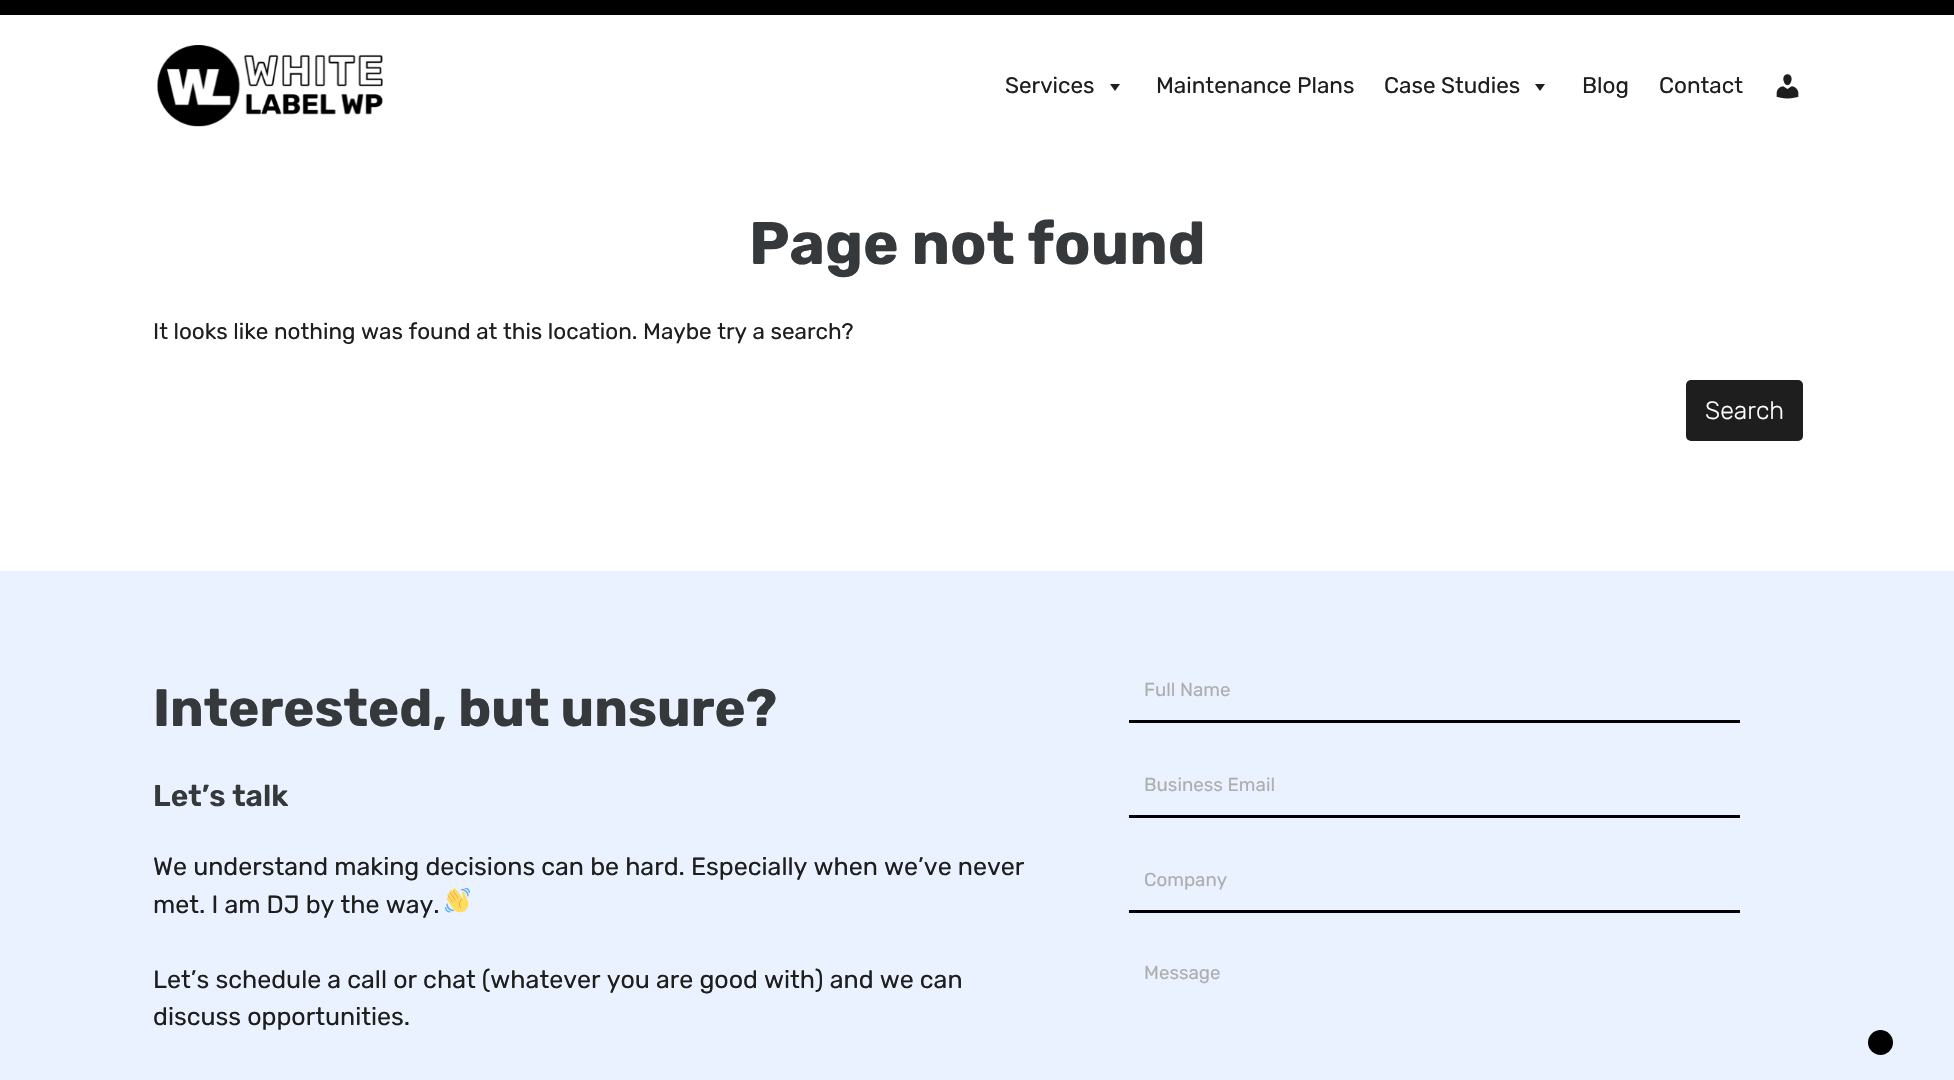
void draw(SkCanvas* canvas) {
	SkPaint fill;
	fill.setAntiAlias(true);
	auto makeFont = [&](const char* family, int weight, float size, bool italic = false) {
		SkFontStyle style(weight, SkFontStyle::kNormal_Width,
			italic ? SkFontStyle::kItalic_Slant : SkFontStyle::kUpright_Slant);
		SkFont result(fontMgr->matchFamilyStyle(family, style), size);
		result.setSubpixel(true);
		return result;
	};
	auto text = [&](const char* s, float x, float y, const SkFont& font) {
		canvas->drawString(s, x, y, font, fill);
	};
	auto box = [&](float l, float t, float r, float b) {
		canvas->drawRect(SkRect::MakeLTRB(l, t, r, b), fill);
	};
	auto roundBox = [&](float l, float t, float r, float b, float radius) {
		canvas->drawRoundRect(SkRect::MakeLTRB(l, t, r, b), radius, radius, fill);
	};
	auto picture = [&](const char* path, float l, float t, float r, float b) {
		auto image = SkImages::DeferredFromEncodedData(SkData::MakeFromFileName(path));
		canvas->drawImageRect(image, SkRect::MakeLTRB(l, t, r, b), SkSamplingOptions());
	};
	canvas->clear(0xFFFFFFFF);
	fill.setColor(0xFF000000);
	box(0, 0, 1954, 15);
	picture("image0.png", 157, 45, 383, 127);
	fill.setColor(0xFF1E1E1E);
	canvas->drawPath(SkPathBuilder().moveTo(1120, 84).lineTo(1115, 91).lineTo(1110, 84).close().detach(), fill);
	canvas->drawPath(SkPathBuilder().moveTo(1545, 84).lineTo(1540, 91).lineTo(1535, 84).close().detach(), fill);
	picture("image1.png", 1776, 74, 1799, 99);
	roundBox(1686, 380, 1803, 441, 5);
	fill.setColor(0xFFEBF2FF);
	box(0, 571, 1954, 1080);
	picture("image2.png", 445, 888, 470, 913);
	fill.setColor(0xFF000000);
	box(1129, 720, 1740, 723);
	box(1129, 815, 1740, 818);
	box(1129, 910, 1740, 913);
	canvas->drawCircle(1880.5f, 1042.5f, 12.5f, fill);
	auto font1 = makeFont("Rubik", 400, 22.5f);
	fill.setColor(0xFF1E1E1E);
	text("Services", 1005, 93, font1);
	text("Maintenance Plans", 1156, 93, font1);
	text("Case Studies", 1384, 93, font1);
	text("Blog", 1582, 93, font1);
	text("Contact", 1659, 93, font1);
	auto font2 = makeFont("Rubik", 700, 60);
	fill.setColor(0xFF36393B);
	text("Page not found", 749, 264, font2);
	fill.setColor(0xFF1E1E1E);
	text("It looks like nothing was found at this location. Maybe try a search?", 153, 339, font1);
	auto font3 = makeFont("Rubik", 300, 25);
	fill.setColor(0xFFFFFFFF);
	text("Search", 1705, 419, font3);
	auto font4 = makeFont("Rubik", 700, 52.5f);
	fill.setColor(0xFF36393B);
	text("Interested, but unsure?", 153, 726, font4);
	auto font5 = makeFont("Rubik", 600, 30);
	text("Let’s talk", 153, 806, font5);
	auto font6 = makeFont("Rubik", 400, 25);
	fill.setColor(0xFF1E1E1E);
	text("We understand making decisions can be hard. Especially when we’ve never", 153, 875, font6);
	text("met. I am DJ by the way.", 153, 913, font6);
	text("Let’s schedule a call or chat (whatever you are good with) and we can", 153, 988, font6);
	text("discuss opportunities.", 153, 1025, font6);
	auto font7 = makeFont("Rubik", 400, 18.75f);
	fill.setColor(0xFFAEAEAE);
	text("Full Name", 1144, 696, font7);
	text("Business Email", 1144, 791, font7);
	text("Company", 1144, 886, font7);
	text("Message", 1144, 979, font7);
}
